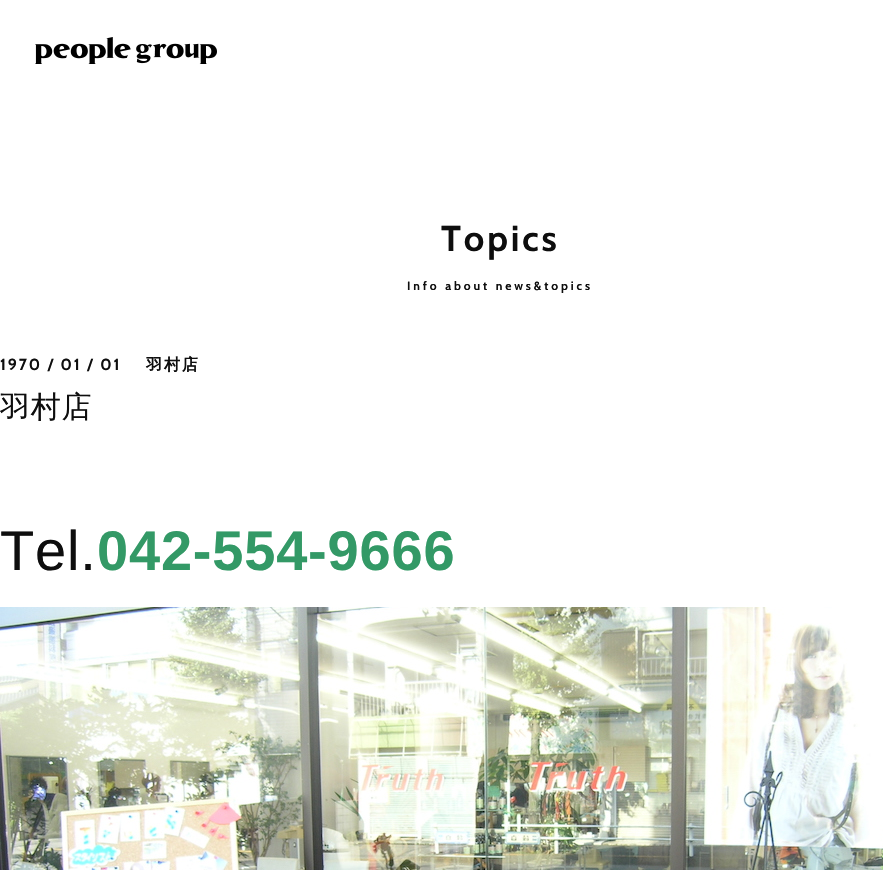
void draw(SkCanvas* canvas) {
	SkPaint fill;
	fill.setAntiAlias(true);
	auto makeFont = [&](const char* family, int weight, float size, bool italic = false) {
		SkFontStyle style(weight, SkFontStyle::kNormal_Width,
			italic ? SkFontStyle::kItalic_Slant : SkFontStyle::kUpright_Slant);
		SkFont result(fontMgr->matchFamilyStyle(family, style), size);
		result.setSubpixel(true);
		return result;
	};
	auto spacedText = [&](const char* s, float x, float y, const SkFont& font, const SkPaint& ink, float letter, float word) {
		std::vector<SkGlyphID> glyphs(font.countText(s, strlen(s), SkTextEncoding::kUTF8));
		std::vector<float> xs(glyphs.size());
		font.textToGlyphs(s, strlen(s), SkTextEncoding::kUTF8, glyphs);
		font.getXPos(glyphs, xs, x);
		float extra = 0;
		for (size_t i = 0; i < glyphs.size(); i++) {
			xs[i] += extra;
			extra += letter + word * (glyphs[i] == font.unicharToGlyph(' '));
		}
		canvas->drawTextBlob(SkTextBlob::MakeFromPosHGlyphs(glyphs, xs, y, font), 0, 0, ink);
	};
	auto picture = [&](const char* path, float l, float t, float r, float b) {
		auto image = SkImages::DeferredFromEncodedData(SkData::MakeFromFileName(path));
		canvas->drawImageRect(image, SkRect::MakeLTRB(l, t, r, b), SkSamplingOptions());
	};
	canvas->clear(0xFFFFFFFF);
	picture("image0.png", 35, 37, 217, 64);
	picture("image1.png", 0, 607, 883, 870);
	auto font1 = makeFont("Cabin", 700, 36);
	fill.setColor(0xFF0E0E0E);
	spacedText("Topics", 441, 251, font1, fill, 2.9f, 0);
	auto font2 = makeFont("Cabin", 700, 12);
	spacedText("Info about news&topics", 407, 290, font2, fill, 2.9f, 0);
	auto font3 = makeFont("Cabin", 700, 16);
	spacedText("1970 / 01 / 01", 0, 370, font3, fill, 1.9f, 0);
	auto font4 = makeFont("WenQuanYi Zen Hei", 700, 16);
	spacedText("羽村店", 146, 370, font4, fill, 1.9f, 0);
	auto font5 = makeFont("WenQuanYi Zen Hei", 500, 30);
	spacedText("羽村店", 0, 417, font5, fill, 0.8f, 0);
	auto font6 = makeFont("Liberation Sans", 400, 56);
	spacedText("Tel.", 0, 570, font6, fill, 0.8f, 0);
	auto font7 = makeFont("Liberation Sans", 700, 56);
	fill.setColor(0xFF339966);
	spacedText("042-554-9666", 97, 570, font7, fill, 0.8f, 0);
}
